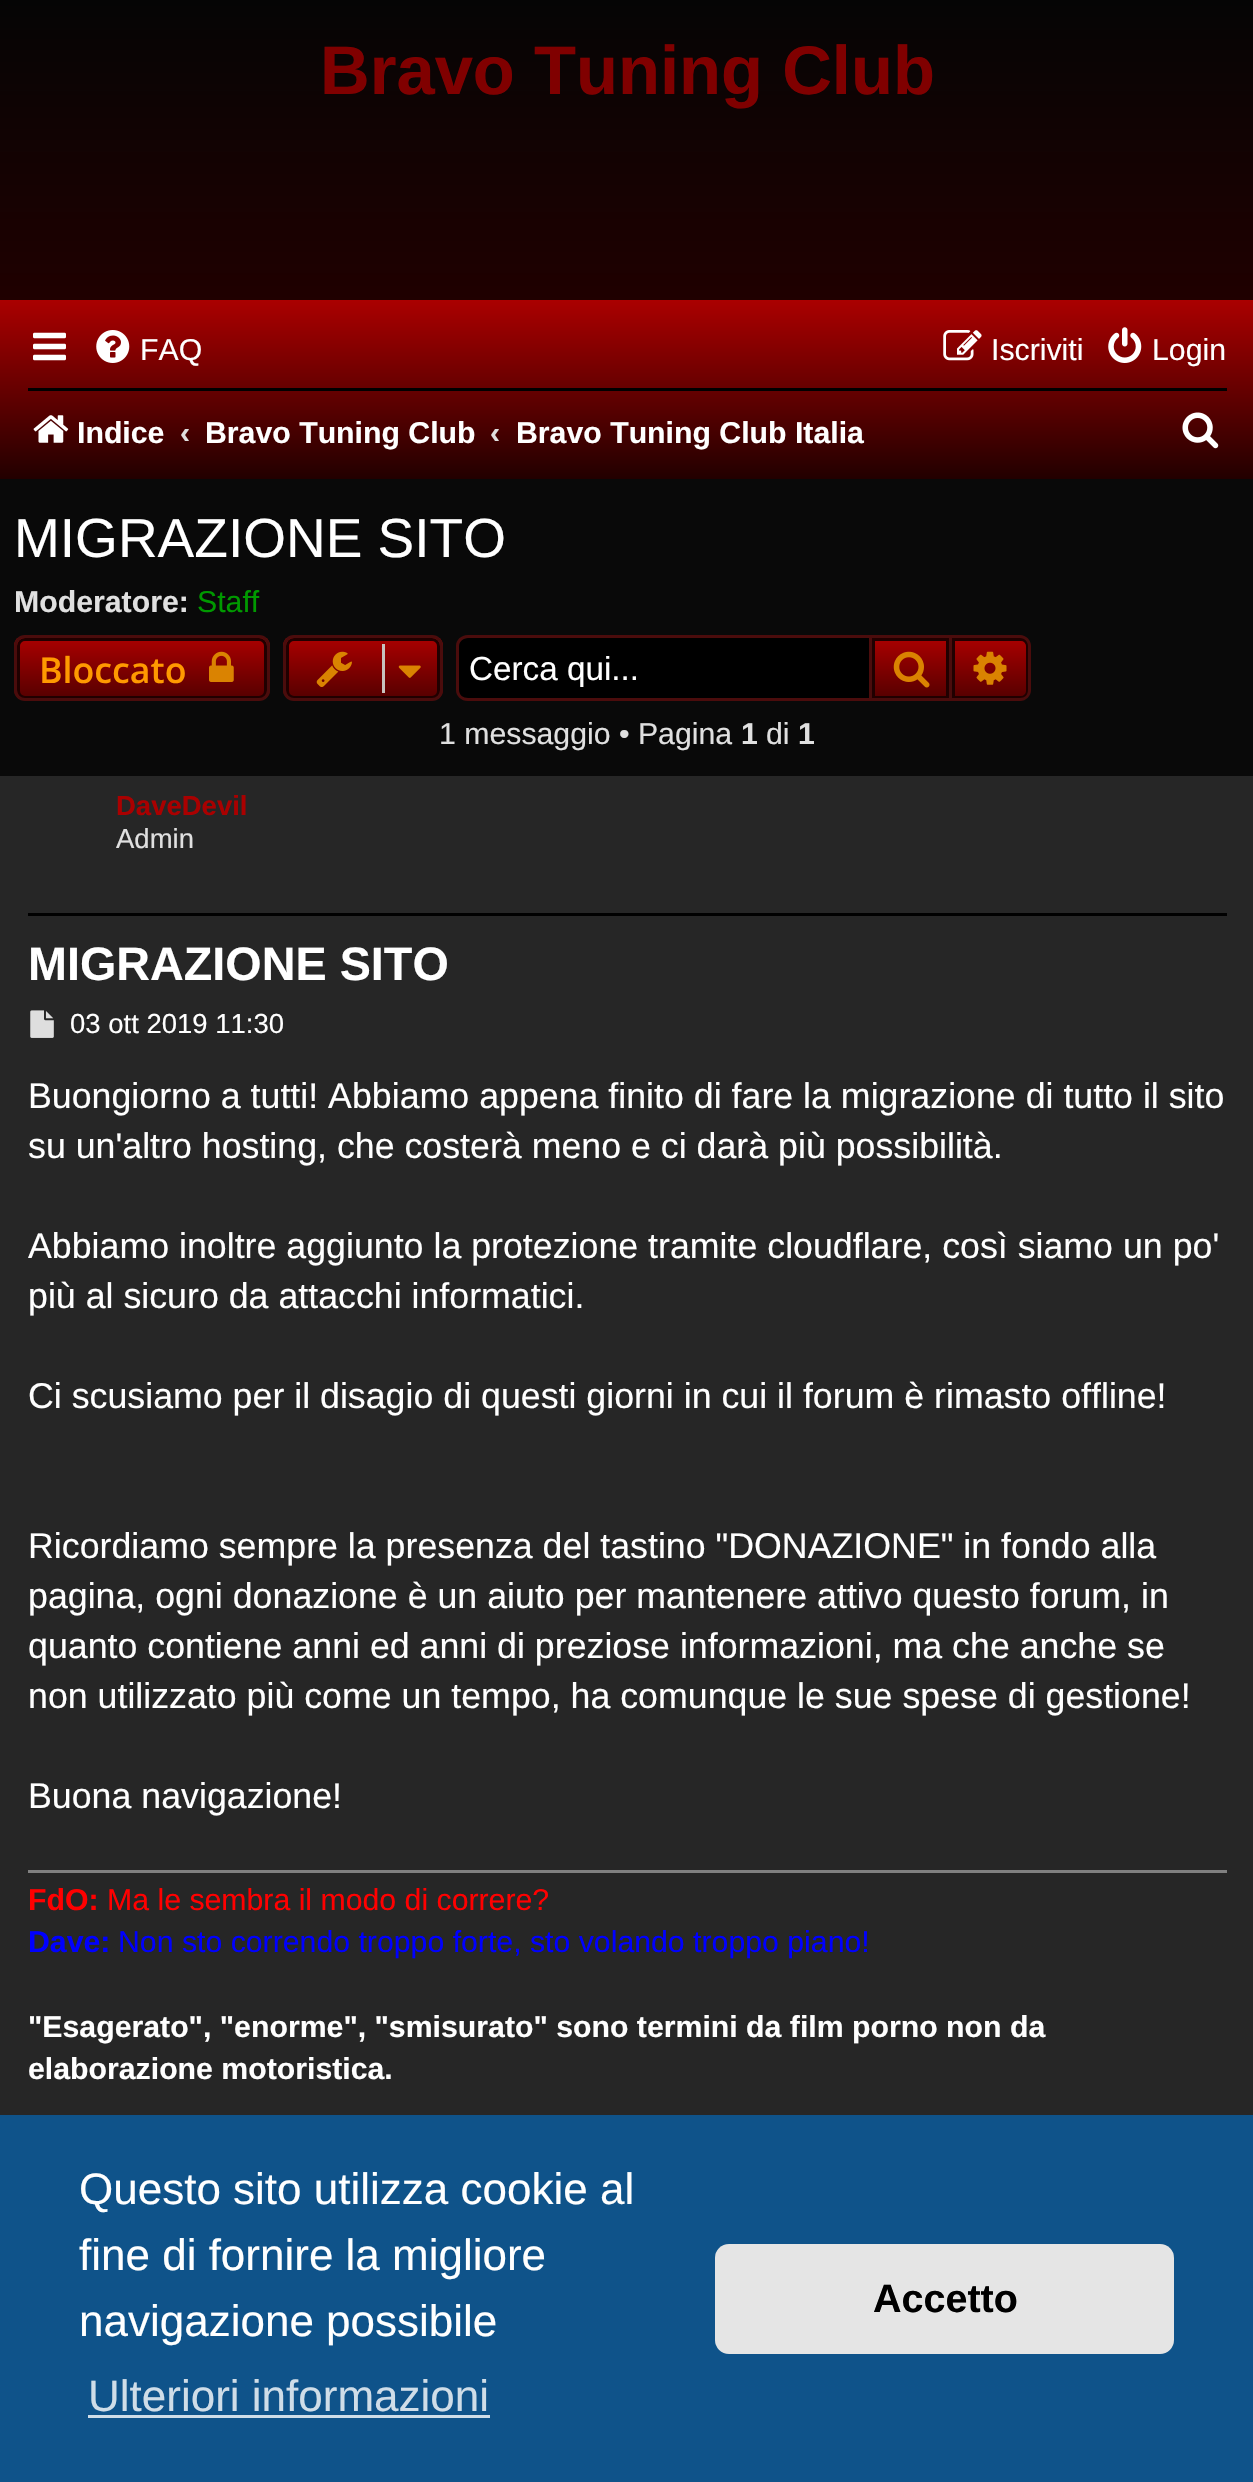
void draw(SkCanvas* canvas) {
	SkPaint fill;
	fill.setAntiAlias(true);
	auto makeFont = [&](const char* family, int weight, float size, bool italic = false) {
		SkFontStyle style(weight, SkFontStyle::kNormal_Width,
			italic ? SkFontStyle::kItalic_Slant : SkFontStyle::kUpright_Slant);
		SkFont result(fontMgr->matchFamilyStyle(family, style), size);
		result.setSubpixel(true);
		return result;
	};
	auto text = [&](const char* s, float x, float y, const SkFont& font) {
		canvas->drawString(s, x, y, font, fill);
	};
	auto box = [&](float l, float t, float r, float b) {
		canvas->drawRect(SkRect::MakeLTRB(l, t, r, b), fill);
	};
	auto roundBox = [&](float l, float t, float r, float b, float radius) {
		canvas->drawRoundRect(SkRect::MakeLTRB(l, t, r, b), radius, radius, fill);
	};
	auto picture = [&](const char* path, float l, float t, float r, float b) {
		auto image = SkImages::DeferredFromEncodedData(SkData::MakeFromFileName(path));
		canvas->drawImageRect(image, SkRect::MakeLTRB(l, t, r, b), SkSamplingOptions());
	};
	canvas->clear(0xFF090909);
	{
		const SkColor colors[] = {0xFF050505, 0xFF200000};
		const float stops[] = {0, 1};
		const SkPoint ends[] = {{627, 0}, {627, 303}};
		fill.setShader(SkGradientShader::MakeLinear(ends, colors, stops, 2, SkTileMode::kClamp));
		fill.setAlpha(255);
	}
	box(0, 0, 1253, 300);
	{
		const SkColor colors[] = {0xFFAA0000, 0xFF220000};
		const float stops[] = {0, 1};
		const SkPoint ends[] = {{627, 300}, {627, 479}};
		fill.setShader(SkGradientShader::MakeLinear(ends, colors, stops, 2, SkTileMode::kClamp));
		fill.setAlpha(255);
	}
	box(0, 300, 1253, 479);
	picture("image0.png", 33, 332, 66, 361);
	picture("image1.png", 96, 330, 130, 363);
	picture("image2.png", 943, 330, 982, 361);
	picture("image3.png", 1108, 327, 1142, 363);
	fill.setShader(nullptr);
	fill.setColor(0xFF000000);
	box(28, 388, 1227, 391);
	picture("image4.png", 33, 415, 69, 443);
	picture("image5.png", 1182, 412, 1219, 449);
	canvas->save();
	canvas->clipPath(SkPathBuilder().moveTo(25, 635).lineTo(259, 635).cubicTo(265, 635, 270, 640, 270, 646).lineTo(270, 690).cubicTo(270, 696, 265, 701, 259, 701).lineTo(25, 701).cubicTo(19, 701, 14, 696, 14, 690).lineTo(14, 646).cubicTo(14, 640, 19, 635, 25, 635).close().detach(), true);
	{
		const SkColor colors[] = {0xFFAA0000, 0xFF550000};
		const float stops[] = {0, 1};
		const SkPoint ends[] = {{142, 638}, {142, 699}};
		fill.setShader(SkGradientShader::MakeLinear(ends, colors, stops, 2, SkTileMode::kClamp));
		fill.setAlpha(255);
	}
	box(14, 638, 270, 699);
	canvas->restore();
	fill.setStyle(SkPaint::kStroke_Style);
	fill.setStrokeWidth(3);
	fill.setShader(nullptr);
	fill.setColor(0xFF200000);
	canvas->drawRoundRect(SkRect::MakeLTRB(18.5f, 639.5f, 265.5f, 697.5f), 6.5f, 6.5f, fill);
	fill.setColor(0xFF4B0C0C);
	canvas->drawRoundRect(SkRect::MakeLTRB(15.5f, 636.5f, 268.5f, 699.5f), 9.5f, 9.5f, fill);
	picture("image6.png", 209, 651, 234, 682);
	canvas->save();
	canvas->clipPath(SkPathBuilder().moveTo(294, 635).lineTo(432, 635).cubicTo(438, 635, 443, 640, 443, 646).lineTo(443, 690).cubicTo(443, 696, 438, 701, 432, 701).lineTo(294, 701).cubicTo(288, 701, 283, 696, 283, 690).lineTo(283, 646).cubicTo(283, 640, 288, 635, 294, 635).close().detach(), true);
	fill.setStyle(SkPaint::kFill_Style);
	{
		const SkColor colors[] = {0xFFAA0000, 0xFF550000};
		const float stops[] = {0, 1};
		const SkPoint ends[] = {{363, 638}, {363, 699}};
		fill.setShader(SkGradientShader::MakeLinear(ends, colors, stops, 2, SkTileMode::kClamp));
		fill.setAlpha(255);
	}
	box(283, 638, 443, 699);
	canvas->restore();
	fill.setStyle(SkPaint::kStroke_Style);
	fill.setShader(nullptr);
	fill.setColor(0xFF200000);
	canvas->drawRoundRect(SkRect::MakeLTRB(287.5f, 639.5f, 438.5f, 697.5f), 6.5f, 6.5f, fill);
	fill.setColor(0xFF4B0C0C);
	canvas->drawRoundRect(SkRect::MakeLTRB(284.5f, 636.5f, 441.5f, 699.5f), 9.5f, 9.5f, fill);
	picture("image7.png", 316, 651, 352, 687);
	fill.setStyle(SkPaint::kFill_Style);
	fill.setColor(0xFFC7C3BF);
	box(382, 644, 385, 693);
	picture("image8.png", 398, 665, 421, 678);
	fill.setColor(0xFF000000);
	canvas->drawPath(SkPathBuilder().moveTo(467, 638).lineTo(869, 638).lineTo(869, 699).lineTo(467, 699).cubicTo(462.5f, 699, 459, 695.5f, 459, 691).lineTo(459, 646).cubicTo(459, 641.5f, 462.5f, 638, 467, 638).close().detach(), fill);
	fill.setColor(0xFF4B0C0C);
	canvas->drawPath(SkPathBuilder(SkPathFillType::kEvenOdd).moveTo(468, 635).lineTo(869, 635).lineTo(869, 701).lineTo(468, 701).cubicTo(461, 701, 456, 696, 456, 690).lineTo(456, 646).cubicTo(456, 640, 461, 635, 468, 635).close().moveTo(468, 638).lineTo(869, 638).lineTo(869, 698).lineTo(468, 698).cubicTo(463, 698, 459, 695, 459, 690).lineTo(459, 646).cubicTo(459, 642, 463, 638, 468, 638).close().detach(), fill);
	{
		const SkColor colors[] = {0xFFAA0000, 0xFF550000};
		const float stops[] = {0, 1};
		const SkPoint ends[] = {{910, 638}, {910, 699}};
		fill.setShader(SkGradientShader::MakeLinear(ends, colors, stops, 2, SkTileMode::kClamp));
		fill.setAlpha(255);
	}
	box(875, 641, 946, 696);
	fill.setStyle(SkPaint::kStroke_Style);
	fill.setShader(nullptr);
	fill.setColor(0xFF200000);
	canvas->drawRect(SkRect::MakeLTRB(873.5f, 639.5f, 947.5f, 697.5f), fill);
	fill.setColor(0xFF4B0C0C);
	canvas->drawRect(SkRect::MakeLTRB(870.5f, 636.5f, 950.5f, 699.5f), fill);
	picture("image9.png", 893, 651, 930, 688);
	fill.setStyle(SkPaint::kFill_Style);
	{
		const SkColor colors[] = {0xFFAA0000, 0xFF550000};
		const float stops[] = {0, 1};
		const SkPoint ends[] = {{990, 638}, {990, 699}};
		fill.setShader(SkGradientShader::MakeLinear(ends, colors, stops, 2, SkTileMode::kClamp));
		fill.setAlpha(255);
	}
	canvas->drawPath(SkPathBuilder().moveTo(953.5f, 639.5f).lineTo(1021, 639.5f).cubicTo(1024.5f, 639.5f, 1027.5f, 642.5f, 1027.5f, 646).lineTo(1027.5f, 691).cubicTo(1027.5f, 694.5f, 1024.5f, 697.5f, 1021, 697.5f).lineTo(953.5f, 697.5f).close().detach(), fill);
	fill.setStyle(SkPaint::kStroke_Style);
	fill.setShader(nullptr);
	fill.setColor(0xFF200000);
	canvas->drawPath(SkPathBuilder().moveTo(953.5f, 639.5f).lineTo(1021, 639.5f).cubicTo(1024.5f, 639.5f, 1027.5f, 642.5f, 1027.5f, 646).lineTo(1027.5f, 691).cubicTo(1027.5f, 694.5f, 1024.5f, 697.5f, 1021, 697.5f).lineTo(953.5f, 697.5f).close().detach(), fill);
	fill.setStyle(SkPaint::kFill_Style);
	fill.setColor(0xFF4B0C0C);
	canvas->drawPath(SkPathBuilder(SkPathFillType::kEvenOdd).moveTo(952, 635).lineTo(1020, 635).cubicTo(1026, 635, 1031, 640, 1031, 646).lineTo(1031, 690).cubicTo(1031, 696, 1026, 701, 1020, 701).lineTo(952, 701).close().moveTo(952, 638).lineTo(1020, 638).cubicTo(1025, 638, 1028, 642, 1028, 646).lineTo(1028, 690).cubicTo(1028, 695, 1025, 698, 1020, 698).lineTo(952, 698).close().detach(), fill);
	picture("image10.png", 973, 651, 1007, 685);
	fill.setColor(0xFF262626);
	box(0, 776, 1253, 2115);
	fill.setColor(0xFF000000);
	box(28, 913, 1227, 916);
	picture("image11.png", 30, 1010, 54, 1038);
	fill.setColor(0xFF808080);
	box(28, 1870, 1227, 1873);
	fill.setColor(0xFF0F538A);
	box(0, 2115, 1253, 2482);
	fill.setColor(0xFFCFDDE8);
	box(88, 2415, 490, 2418);
	fill.setColor(0xFFE5E5E5);
	roundBox(715, 2244, 1174, 2354, 14);
	auto font1 = makeFont("Liberation Sans", 700, 68.75f);
	fill.setColor(0xFF800000);
	text("Bravo Tuning Club", 320, 94, font1);
	auto font2 = makeFont("Liberation Sans", 400, 30.25f);
	fill.setColor(0xFFFFFFFF);
	text("FAQ", 140, 360, font2);
	text("Iscriviti", 991, 360, font2);
	text("Login", 1152, 360, font2);
	auto font3 = makeFont("Liberation Sans", 700, 30.25f);
	text("Indice", 77, 443, font3);
	fill.setColor(0xFFE0E0E0);
	text("‹", 180, 443, font3);
	fill.setColor(0xFFFFFFFF);
	text("Bravo Tuning Club", 205, 443, font3);
	fill.setColor(0xFFE0E0E0);
	text("‹", 490, 443, font3);
	fill.setColor(0xFFFFFFFF);
	text("Bravo Tuning Club Italia", 516, 443, font3);
	auto font4 = makeFont("Liberation Sans", 400, 55);
	text("MIGRAZIONE SITO", 14, 557, font4);
	fill.setColor(0xFFE0E0E0);
	text("Moderatore:", 14, 612, font3);
	fill.setColor(0xFF009900);
	text("Staff", 197, 612, font2);
	auto font5 = makeFont("Open Sans", 600, 35.75f);
	fill.setColor(0xFFFF9900);
	text("Bloccato", 39, 683, font5);
	auto font6 = makeFont("Liberation Sans", 400, 33.25f);
	fill.setColor(0xFFFFFFFF);
	text("Cerca qui...", 469, 680, font6);
	fill.setColor(0xFFE0E0E0);
	text("1 messaggio • Pagina", 439, 744, font2);
	text("1", 741, 744, font3);
	text("di", 766, 744, font2);
	text("1", 798, 744, font3);
	auto font7 = makeFont("Liberation Sans", 700, 27.5f);
	fill.setColor(0xFFAA0000);
	text("DaveDevil", 116, 815, font7);
	auto font8 = makeFont("Liberation Sans", 400, 27.5f);
	fill.setColor(0xFFE0E0E0);
	text("Admin", 116, 848, font8);
	auto font9 = makeFont("Liberation Sans", 700, 46.75f);
	fill.setColor(0xFFFFFFFF);
	text("MIGRAZIONE SITO", 28, 980, font9);
	text("03 ott 2019 11:30", 70, 1033, font8);
	auto font10 = makeFont("Liberation Sans", 400, 35.75f);
	text("Buongiorno a tutti! Abbiamo appena finito di fare la migrazione di tutto il sito", 28, 1108, font10);
	text("su un'altro hosting, che costerà meno e ci darà più possibilità.", 28, 1158, font10);
	text("Abbiamo inoltre aggiunto la protezione tramite cloudflare, così siamo un po'", 28, 1258, font10);
	text("più al sicuro da attacchi informatici.", 28, 1308, font10);
	text("Ci scusiamo per il disagio di questi giorni in cui il forum è rimasto offline!", 28, 1408, font10);
	text("Ricordiamo sempre la presenza del tastino \"DONAZIONE\" in fondo alla", 28, 1558, font10);
	text("pagina, ogni donazione è un aiuto per mantenere attivo questo forum, in", 28, 1608, font10);
	text("quanto contiene anni ed anni di preziose informazioni, ma che anche se", 28, 1658, font10);
	text("non utilizzato più come un tempo, ha comunque le sue spese di gestione!", 28, 1708, font10);
	text("Buona navigazione!", 28, 1808, font10);
	fill.setColor(0xFFFF0000);
	text("FdO:", 28, 1910, font3);
	text("Ma le sembra il modo di correre?", 107, 1910, font2);
	fill.setColor(0xFF0000FF);
	text("Dave:", 28, 1952, font3);
	text("Non sto correndo troppo forte, sto volando troppo piano!", 118, 1952, font2);
	fill.setColor(0xFFFFFFFF);
	text("\"Esagerato\", \"enorme\", \"smisurato\" sono termini da film porno non da", 28, 2037, font3);
	text("elaborazione motoristica.", 28, 2079, font3);
	auto font11 = makeFont("Liberation Sans", 400, 44);
	text("Questo sito utilizza cookie al", 79, 2204, font11);
	text("fine di fornire la migliore", 79, 2270, font11);
	text("navigazione possibile", 79, 2336, font11);
	fill.setColor(0xFFCFDDE8);
	text("Ulteriori informazioni", 88, 2411, font11);
	auto font12 = makeFont("Liberation Sans", 700, 39.5f);
	fill.setColor(0xFF000000);
	text("Accetto", 873, 2312, font12);
}
